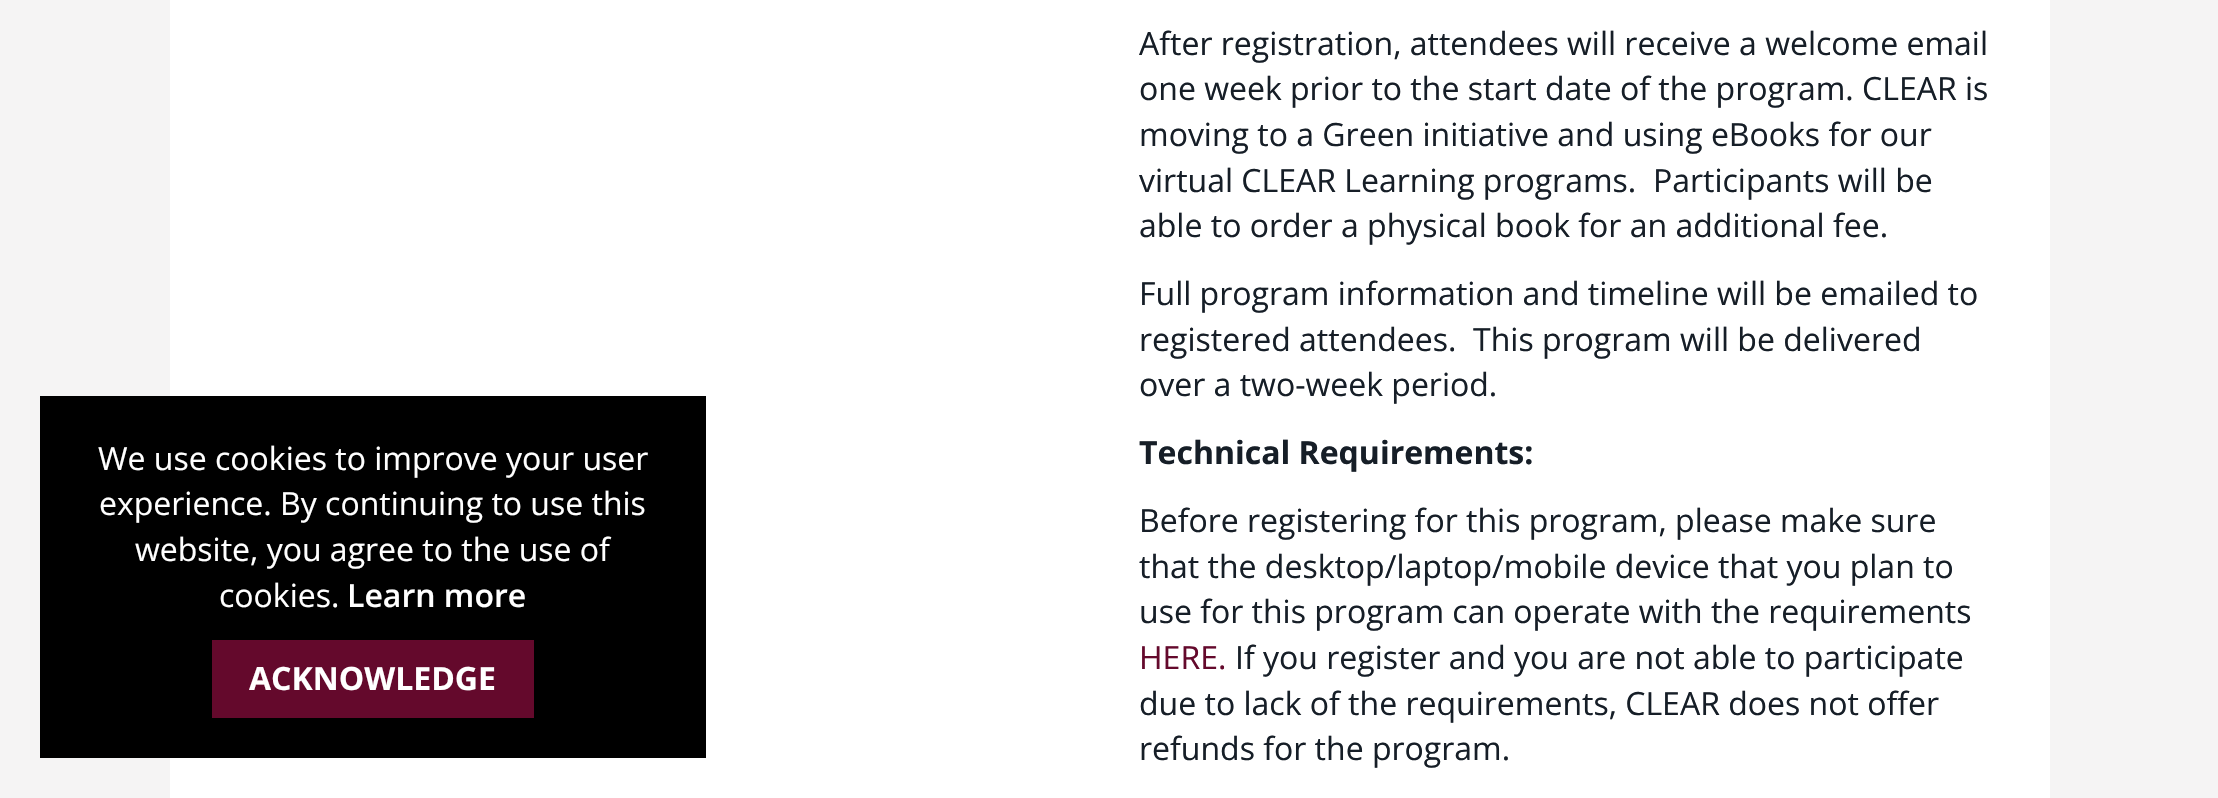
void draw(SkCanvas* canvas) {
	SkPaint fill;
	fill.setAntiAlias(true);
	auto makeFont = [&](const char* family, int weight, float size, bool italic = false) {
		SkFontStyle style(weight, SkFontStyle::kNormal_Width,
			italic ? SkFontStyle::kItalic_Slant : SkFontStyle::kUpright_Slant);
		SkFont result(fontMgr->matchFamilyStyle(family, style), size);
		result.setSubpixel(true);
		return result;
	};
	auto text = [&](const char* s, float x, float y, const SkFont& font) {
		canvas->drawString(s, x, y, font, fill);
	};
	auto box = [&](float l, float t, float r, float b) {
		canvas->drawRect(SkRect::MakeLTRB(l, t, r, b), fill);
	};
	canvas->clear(0xFFF5F4F4);
	fill.setColor(0xFFFFFFFF);
	box(170, 0, 2050, 798);
	fill.setColor(0xFF000000);
	box(40, 396, 706, 758);
	fill.setColor(0xFF64092C);
	box(212, 640, 534, 718);
	auto font1 = makeFont("Open Sans", 400, 32);
	fill.setColor(0xFFFFFFFF);
	text("We use cookies to improve your user", 98, 470, font1);
	text("experience. By continuing to use this", 99, 515, font1);
	text("website, you agree to the use of", 135, 561, font1);
	text("cookies.", 219, 607, font1);
	auto font2 = makeFont("Open Sans", 600, 32);
	text("Learn more", 347, 607, font2);
	auto font3 = makeFont("Open Sans", 700, 32);
	text("ACKNOWLEDGE", 249, 690, font3);
	fill.setColor(0xFF161E27);
	text("After registration, attendees will receive a welcome email", 1139, 55, font1);
	text("one week prior to the start date of the program. CLEAR is", 1139, 100, font1);
	text("moving to a Green initiative and using eBooks for our", 1139, 146, font1);
	text("virtual CLEAR Learning programs.  Participants will be", 1139, 192, font1);
	text("able to order a physical book for an additional fee.", 1139, 237, font1);
	text("Full program information and timeline will be emailed to", 1139, 305, font1);
	text("registered attendees.  This program will be delivered", 1139, 351, font1);
	text("over a two-week period.", 1139, 396, font1);
	text("Technical Requirements:", 1139, 464, font3);
	text("Before registering for this program, please make sure", 1139, 532, font1);
	text("that the desktop/laptop/mobile device that you plan to", 1139, 578, font1);
	text("use for this program can operate with the requirements", 1139, 623, font1);
	fill.setColor(0xFF64092C);
	text("HERE.", 1139, 669, font1);
	fill.setColor(0xFF161E27);
	text("If you register and you are not able to participate", 1235, 669, font1);
	text("due to lack of the requirements, CLEAR does not offer", 1139, 715, font1);
	text("refunds for the program.", 1139, 760, font1);
}
